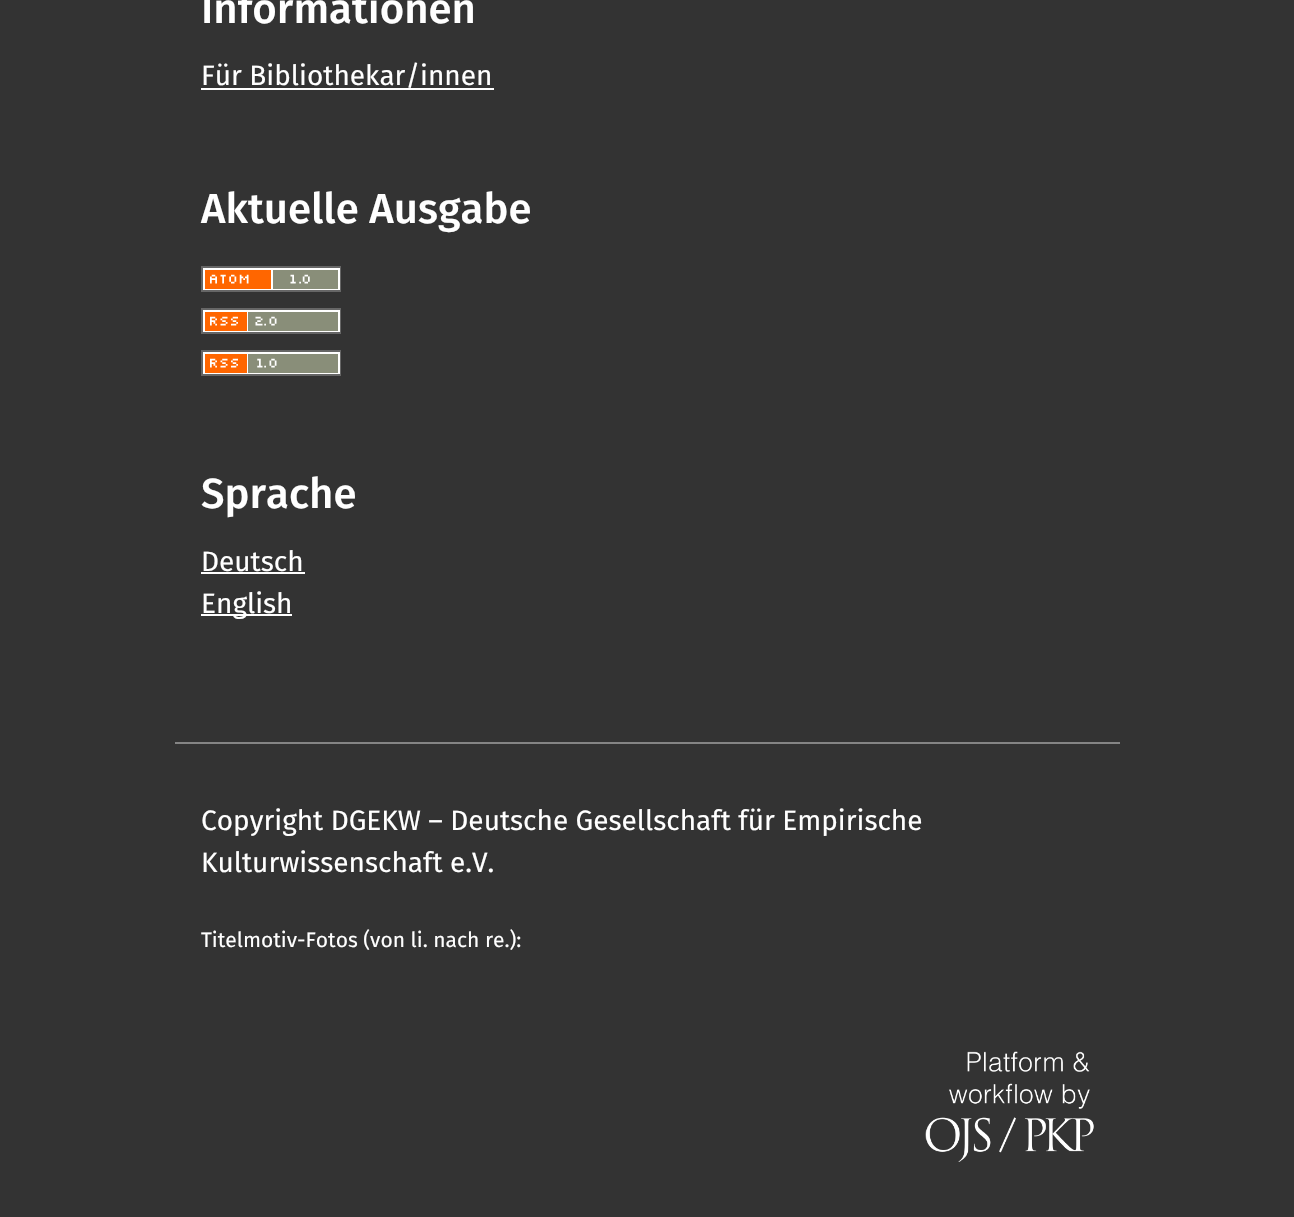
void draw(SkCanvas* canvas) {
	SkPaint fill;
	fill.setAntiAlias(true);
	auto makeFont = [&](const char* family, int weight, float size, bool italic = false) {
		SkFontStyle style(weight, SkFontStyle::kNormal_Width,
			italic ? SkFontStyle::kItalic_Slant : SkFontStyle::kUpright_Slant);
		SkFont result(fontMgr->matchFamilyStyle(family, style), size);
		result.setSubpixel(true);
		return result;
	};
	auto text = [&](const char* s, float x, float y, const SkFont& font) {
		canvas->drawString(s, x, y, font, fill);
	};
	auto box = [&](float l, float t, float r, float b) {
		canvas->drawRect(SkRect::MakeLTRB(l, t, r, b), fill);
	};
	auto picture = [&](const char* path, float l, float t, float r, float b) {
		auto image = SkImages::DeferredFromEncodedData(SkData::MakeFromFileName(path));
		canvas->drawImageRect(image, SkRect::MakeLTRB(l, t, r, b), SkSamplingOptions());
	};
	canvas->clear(0xFF333333);
	fill.setColor(0xFF858585);
	box(175, 742, 1120, 744);
	fill.setColor(0xFFFFFFFF);
	box(201, 88, 494, 90);
	picture("image0.png", 201, 266, 341, 292);
	picture("image1.png", 201, 308, 341, 334);
	picture("image2.png", 201, 350, 341, 376);
	box(201, 572, 305, 574);
	box(201, 614, 292, 616);
	picture("image3.png", 925, 1051, 1094, 1162);
	auto font1 = makeFont("Fira Sans", 500, 42);
	text("Informationen", 201, 23, font1);
	auto font2 = makeFont("Fira Sans", 400, 28);
	text("Für Bibliothekar/innen", 201, 85, font2);
	text("Aktuelle Ausgabe", 201, 223, font1);
	text("Sprache", 201, 508, font1);
	text("Deutsch", 201, 571, font2);
	text("English", 201, 613, font2);
	text("Copyright DGEKW – Deutsche Gesellschaft für Empirische", 201, 830, font2);
	text("Kulturwissenschaft e.V.", 201, 872, font2);
	auto font3 = makeFont("Fira Sans", 400, 21);
	text("Titelmotiv-Fotos (von li. nach re.):", 201, 947, font3);
}
